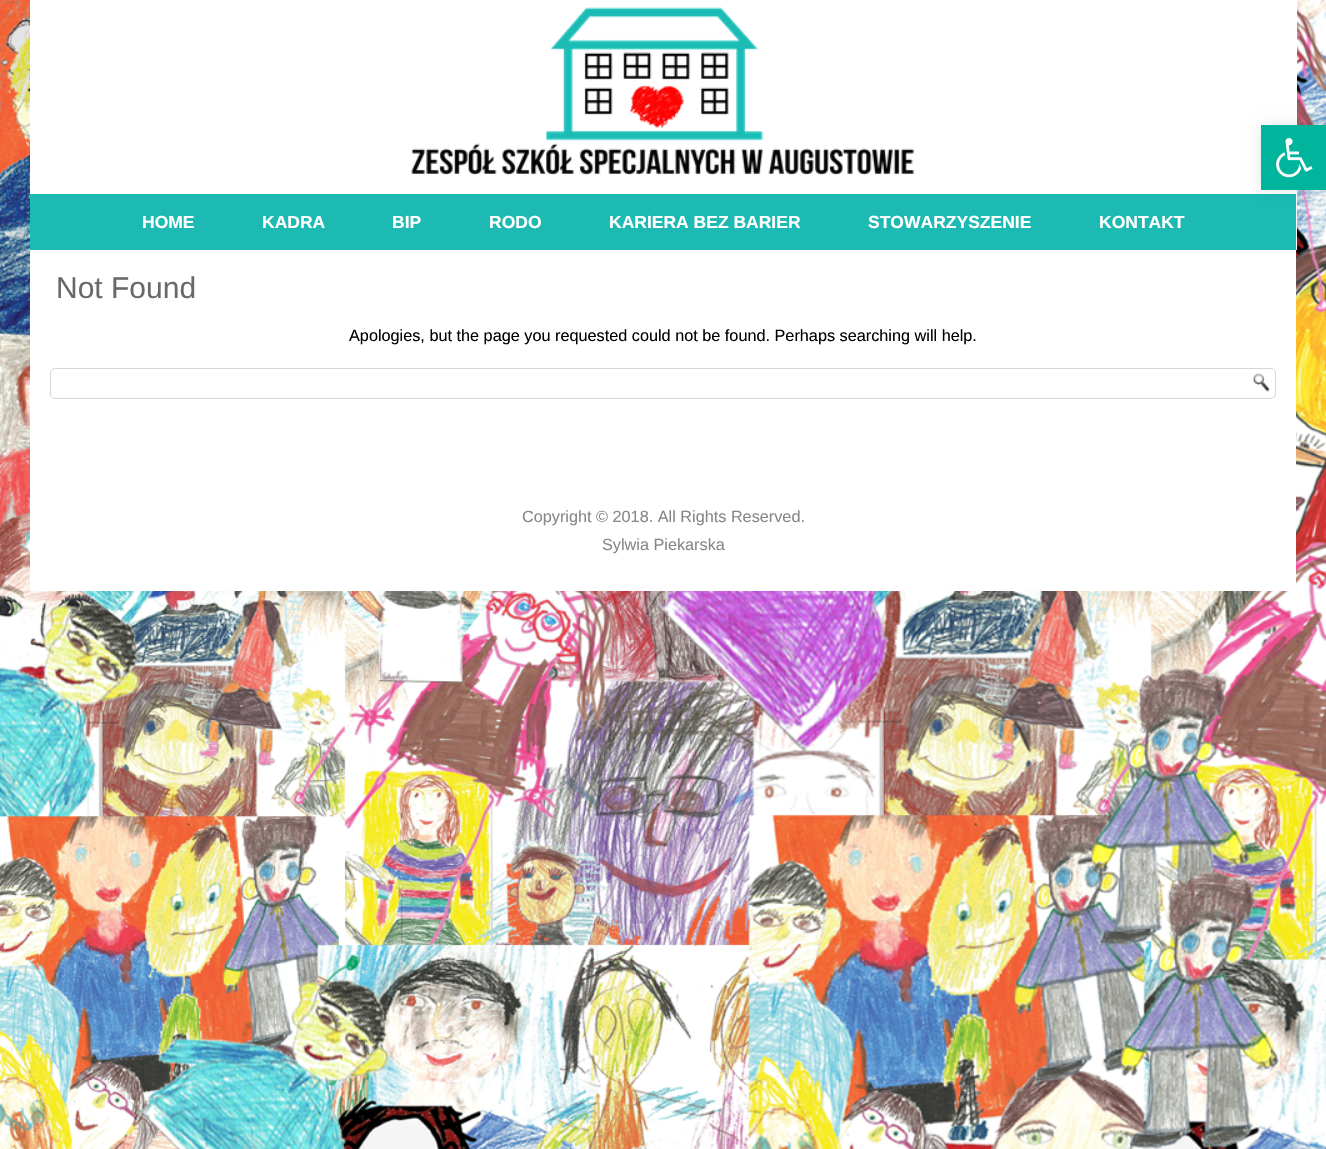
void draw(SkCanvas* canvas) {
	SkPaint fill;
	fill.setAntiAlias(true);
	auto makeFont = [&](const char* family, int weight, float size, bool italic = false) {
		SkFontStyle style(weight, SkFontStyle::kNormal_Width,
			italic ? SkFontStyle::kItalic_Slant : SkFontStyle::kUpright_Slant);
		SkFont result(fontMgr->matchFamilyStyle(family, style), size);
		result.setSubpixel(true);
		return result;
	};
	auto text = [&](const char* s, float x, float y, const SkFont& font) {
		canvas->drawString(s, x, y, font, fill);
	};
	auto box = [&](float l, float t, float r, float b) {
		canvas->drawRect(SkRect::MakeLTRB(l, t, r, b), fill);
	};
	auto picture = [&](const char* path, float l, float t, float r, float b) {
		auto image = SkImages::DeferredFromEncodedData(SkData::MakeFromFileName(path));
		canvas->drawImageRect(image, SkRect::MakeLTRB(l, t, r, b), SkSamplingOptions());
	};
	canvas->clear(0xFFFFFFFF);
	picture("image1.png", 0, 0, 1326, 1149);
	fill.setColor(0xFFFFFFFF);
	box(30, 0, 1297, 250);
	fill.setColor(0xFF1CBAB2);
	box(30, 194, 1296, 250);
	fill.setColor(0x1A000000);
	fill.setMaskFilter(SkMaskFilter::MakeBlur(kNormal_SkBlurStyle, 6));
	canvas->drawRect(SkRect::MakeLTRB(1261, 125, 1326, 190), fill);
	fill.setMaskFilter(nullptr);
	fill.setColor(0xFF00B59C);
	box(1261, 125, 1326, 190);
	picture("image0.png", 1276, 138, 1313, 178);
	picture("image2.png", 411, 7, 914, 175);
	fill.setColor(0xFFFFFFFF);
	box(30, 250, 1296, 591);
	fill.setStyle(SkPaint::kStroke_Style);
	fill.setStrokeWidth(1);
	fill.setColor(0xFFD6D6D6);
	canvas->drawRoundRect(SkRect::MakeLTRB(50.5f, 368.5f, 1275.5f, 398.5f), 4.5f, 4.5f, fill);
	picture("image3.png", 1252, 373, 1270, 392);
	auto font1 = makeFont("Liberation Sans", 700, 17.5f);
	fill.setStyle(SkPaint::kFill_Style);
	fill.setColor(0xFFFFFFFF);
	text("HOME", 142, 228, font1);
	text("KADRA", 262, 228, font1);
	text("BIP", 392, 228, font1);
	text("RODO", 489, 228, font1);
	text("KARIERA BEZ BARIER", 609, 228, font1);
	text("STOWARZYSZENIE", 868, 228, font1);
	text("KONTAKT", 1099, 228, font1);
	auto font2 = makeFont("Liberation Sans", 400, 30);
	fill.setColor(0xFF696969);
	text("Not Found", 56, 298, font2);
	auto font3 = makeFont("Liberation Sans", 400, 16.25f);
	fill.setColor(0xFF000000);
	text("Apologies, but the page you requested could not be found. Perhaps searching will help.", 349, 341, font3);
	fill.setColor(0xFF878787);
	text("Copyright © 2018. All Rights Reserved.", 522, 522, font3);
	text("Sylwia Piekarska", 602, 550, font3);
}
